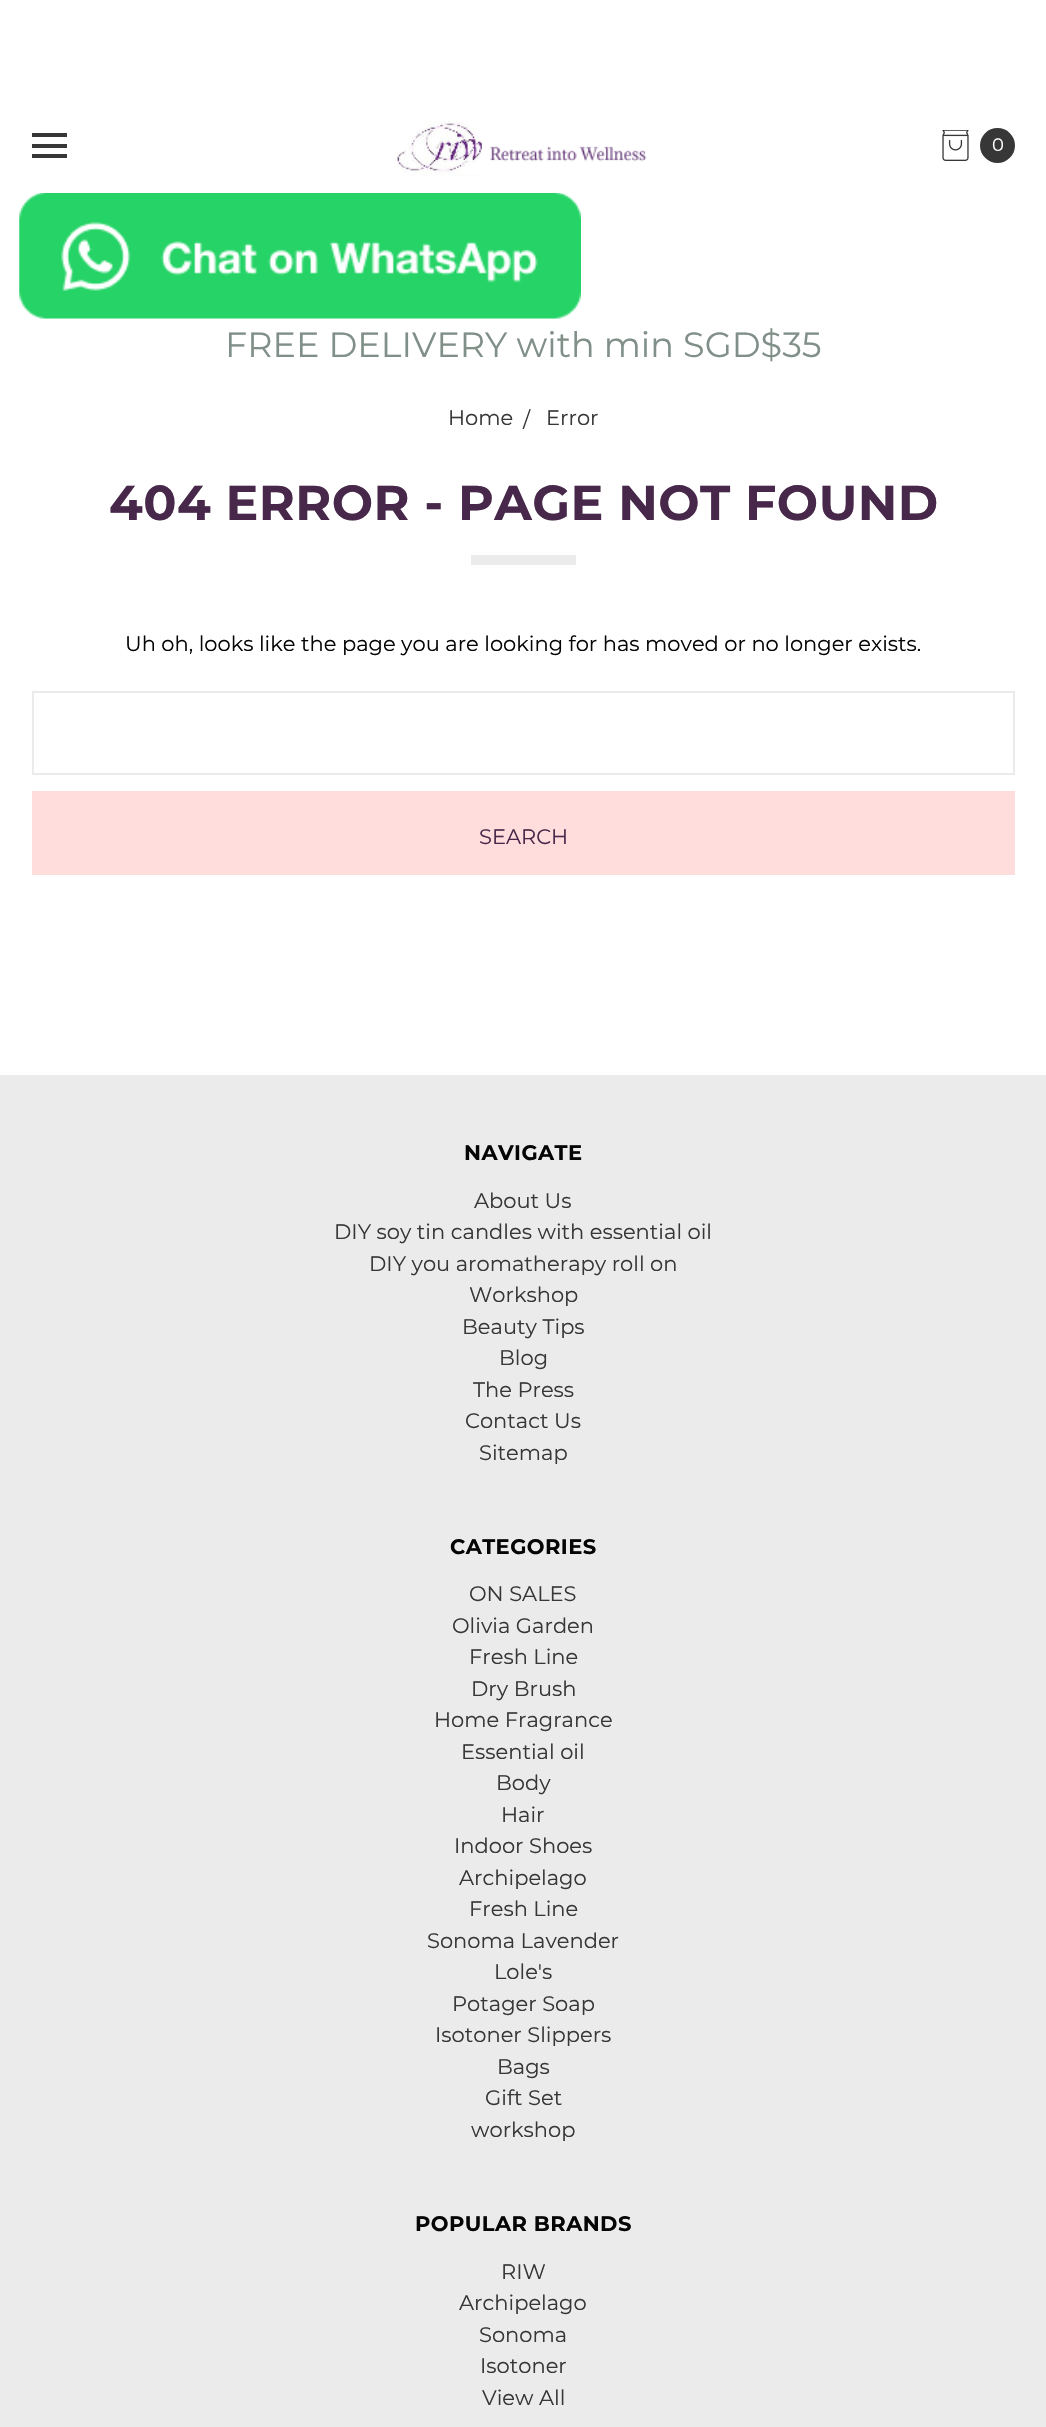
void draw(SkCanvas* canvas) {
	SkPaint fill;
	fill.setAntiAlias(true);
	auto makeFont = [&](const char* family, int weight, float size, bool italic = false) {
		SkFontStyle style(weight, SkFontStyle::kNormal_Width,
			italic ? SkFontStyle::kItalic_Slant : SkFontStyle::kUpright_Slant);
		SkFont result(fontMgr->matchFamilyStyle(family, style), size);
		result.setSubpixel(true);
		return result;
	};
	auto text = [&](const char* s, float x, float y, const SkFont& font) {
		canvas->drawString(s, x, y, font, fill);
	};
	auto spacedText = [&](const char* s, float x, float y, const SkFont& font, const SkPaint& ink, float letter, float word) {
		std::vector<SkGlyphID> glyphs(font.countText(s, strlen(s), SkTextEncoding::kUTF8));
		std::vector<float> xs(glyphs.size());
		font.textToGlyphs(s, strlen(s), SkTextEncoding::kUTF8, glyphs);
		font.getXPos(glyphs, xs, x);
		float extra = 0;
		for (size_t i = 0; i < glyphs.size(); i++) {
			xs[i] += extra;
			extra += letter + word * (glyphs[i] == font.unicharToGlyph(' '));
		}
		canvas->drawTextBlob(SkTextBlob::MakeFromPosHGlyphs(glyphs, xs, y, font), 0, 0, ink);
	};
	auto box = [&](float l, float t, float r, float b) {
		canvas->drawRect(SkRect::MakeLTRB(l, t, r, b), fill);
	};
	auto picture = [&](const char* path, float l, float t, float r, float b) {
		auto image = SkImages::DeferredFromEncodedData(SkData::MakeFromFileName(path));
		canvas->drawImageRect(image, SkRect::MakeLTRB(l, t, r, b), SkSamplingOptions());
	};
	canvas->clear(0xFFFFFFFF);
	fill.setColor(0xFF373737);
	box(32, 144, 67, 148);
	box(32, 133, 67, 137);
	box(32, 154, 67, 158);
	picture("image0.png", 394, 121, 647, 177);
	picture("image1.png", 942, 130, 969, 161);
	canvas->drawCircle(997.5f, 145.5f, 17.5f, fill);
	picture("image2.png", 19, 193, 581, 319);
	fill.setColor(0xFFEBEBEB);
	box(471, 555, 576, 565);
	fill.setStyle(SkPaint::kStroke_Style);
	fill.setStrokeWidth(2);
	canvas->drawRect(SkRect::MakeLTRB(33, 692, 1014, 774), fill);
	fill.setStyle(SkPaint::kFill_Style);
	fill.setColor(0xFFFFDDDD);
	box(32, 791, 1015, 875);
	fill.setColor(0xFFEBEBEB);
	box(0, 1075, 1046, 2427);
	auto font1 = makeFont("Montserrat", 400, 18);
	fill.setColor(0xFFFFFFFF);
	text("0", 992, 151, font1);
	auto font2 = makeFont("Montserrat", 400, 35);
	fill.setColor(0xFF808F87);
	text("FREE DELIVERY with min SGD$35", 225, 357, font2);
	auto font3 = makeFont("Montserrat", 400, 21);
	fill.setColor(0xFF373737);
	text("Home", 448, 425, font3);
	text("/", 523, 427, font3);
	text("Error", 546, 425, font3);
	auto font4 = makeFont("Montserrat", 700, 49);
	fill.setColor(0xFF48284A);
	spacedText("404 ERROR - PAGE NOT FOUND", 109, 520, font4, fill, 0.45f, 0);
	fill.setColor(0xFF050505);
	text("Uh oh, looks like the page you are looking for has moved or no longer exists.", 125, 651, font3);
	fill.setColor(0xFF48284A);
	text("SEARCH", 479, 844, font3);
	auto font5 = makeFont("Montserrat", 700, 21);
	fill.setColor(0xFF050505);
	spacedText("NAVIGATE", 464, 1160, font5, fill, 0.45f, 0);
	fill.setColor(0xFF373737);
	text("About Us", 474, 1208, font3);
	text("DIY soy tin candles with essential oil", 334, 1239, font3);
	text("DIY you aromatherapy roll on", 369, 1271, font3);
	text("Workshop", 469, 1302, font3);
	text("Beauty Tips", 462, 1334, font3);
	text("Blog", 499, 1365, font3);
	text("The Press", 473, 1397, font3);
	text("Contact Us", 465, 1428, font3);
	text("Sitemap", 479, 1460, font3);
	fill.setColor(0xFF050505);
	spacedText("CATEGORIES", 450, 1554, font5, fill, 0.45f, 0);
	fill.setColor(0xFF373737);
	text("ON SALES", 469, 1601, font3);
	text("Olivia Garden", 452, 1633, font3);
	text("Fresh Line", 469, 1664, font3);
	text("Dry Brush", 471, 1696, font3);
	text("Home Fragrance", 434, 1727, font3);
	text("Essential oil", 461, 1759, font3);
	text("Body", 496, 1790, font3);
	text("Hair", 501, 1822, font3);
	text("Indoor Shoes", 454, 1853, font3);
	text("Archipelago", 459, 1885, font3);
	text("Fresh Line", 469, 1916, font3);
	text("Sonoma Lavender", 427, 1948, font3);
	text("Lole's", 494, 1979, font3);
	text("Potager Soap", 452, 2011, font3);
	text("Isotoner Slippers", 435, 2042, font3);
	text("Bags", 497, 2074, font3);
	text("Gift Set", 485, 2105, font3);
	text("workshop", 471, 2137, font3);
	fill.setColor(0xFF050505);
	spacedText("POPULAR BRANDS", 415, 2231, font5, fill, 0.45f, 0);
	fill.setColor(0xFF373737);
	text("RIW", 501, 2279, font3);
	text("Archipelago", 459, 2310, font3);
	text("Sonoma", 479, 2342, font3);
	text("Isotoner", 480, 2373, font3);
	text("View All", 482, 2405, font3);
}
